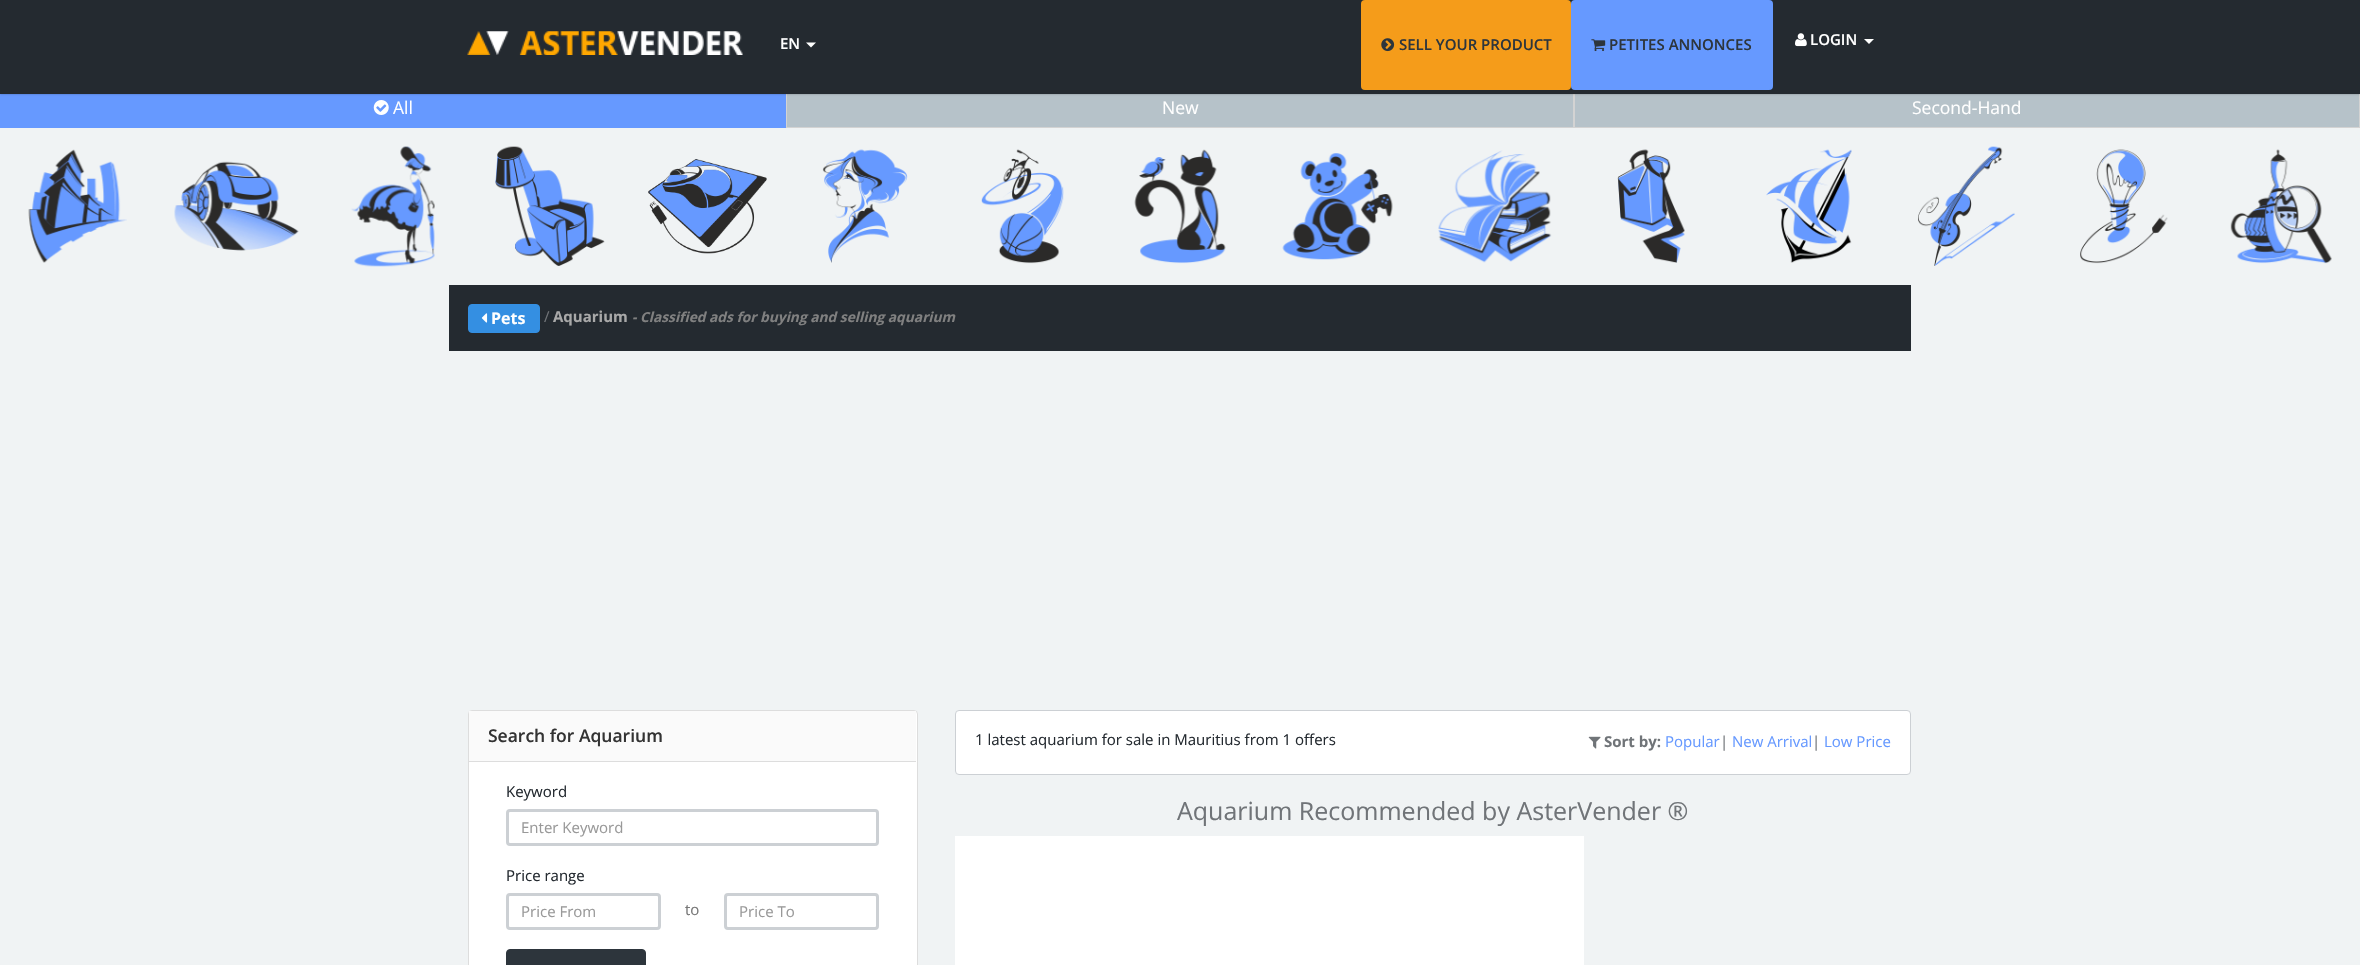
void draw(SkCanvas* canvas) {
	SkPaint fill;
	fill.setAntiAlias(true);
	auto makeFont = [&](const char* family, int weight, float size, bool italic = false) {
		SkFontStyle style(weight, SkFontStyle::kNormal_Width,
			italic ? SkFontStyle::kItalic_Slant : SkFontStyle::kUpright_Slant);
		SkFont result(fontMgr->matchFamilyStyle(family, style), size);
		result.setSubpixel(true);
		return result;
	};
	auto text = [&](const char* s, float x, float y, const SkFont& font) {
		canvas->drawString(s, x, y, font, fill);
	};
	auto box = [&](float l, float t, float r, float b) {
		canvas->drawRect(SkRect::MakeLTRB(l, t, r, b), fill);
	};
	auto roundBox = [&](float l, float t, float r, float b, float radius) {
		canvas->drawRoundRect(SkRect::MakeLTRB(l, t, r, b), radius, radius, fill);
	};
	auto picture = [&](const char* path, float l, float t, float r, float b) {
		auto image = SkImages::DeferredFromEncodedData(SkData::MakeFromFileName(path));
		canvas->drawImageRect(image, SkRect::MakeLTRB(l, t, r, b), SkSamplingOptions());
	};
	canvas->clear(0xFFF0F3F4);
	fill.setColor(0xFF6699FF);
	box(0, 94, 786, 128);
	fill.setColor(0xFFB6C2C9);
	box(787, 94, 1573, 127);
	fill.setStyle(SkPaint::kStroke_Style);
	fill.setStrokeWidth(1);
	fill.setColor(0xFFD3D3D3);
	canvas->drawRect(SkRect::MakeLTRB(786.5f, 88.5f, 1573.5f, 127.5f), fill);
	fill.setStyle(SkPaint::kFill_Style);
	fill.setColor(0xFFB6C2C9);
	box(1575, 94, 2359, 127);
	fill.setStyle(SkPaint::kStroke_Style);
	fill.setColor(0xFFD3D3D3);
	canvas->drawRect(SkRect::MakeLTRB(1574.5f, 88.5f, 2359.5f, 127.5f), fill);
	fill.setStyle(SkPaint::kFill_Style);
	fill.setColor(0x4D000000);
	fill.setMaskFilter(SkMaskFilter::MakeBlur(kNormal_SkBlurStyle, 1));
	canvas->drawRect(SkRect::MakeLTRB(0, 0, 2360, 94), fill);
	fill.setMaskFilter(nullptr);
	fill.setColor(0xFF242A30);
	box(0, 0, 2360, 94);
	picture("image0.png", 467, 31, 743, 55);
	fill.setColor(0xFFFFFFFF);
	canvas->drawPath(SkPathBuilder().moveTo(806, 42.5f).lineTo(816, 42.5f).lineTo(811, 47.5f).close().detach(), fill);
	fill.setColor(0xFFF59C1A);
	roundBox(1361, 0, 1571, 90, 4);
	picture("image1.png", 1381, 38, 1395, 52);
	fill.setColor(0xFF6699FF);
	roundBox(1571, 0, 1773, 90, 4);
	picture("image2.png", 1591, 39, 1606, 52);
	picture("image3.png", 1795, 33, 1807, 47);
	fill.setColor(0xFFFFFFFF);
	canvas->drawPath(SkPathBuilder().moveTo(1864, 39).lineTo(1874, 39).lineTo(1869, 44).close().detach(), fill);
	picture("image4.png", 373, 100, 389, 115);
	picture("image5.png", 28, 149, 127, 263);
	picture("image6.png", 174, 161, 299, 251);
	picture("image7.png", 351, 146, 435, 267);
	picture("image8.png", 495, 146, 605, 266);
	picture("image9.png", 648, 159, 767, 254);
	picture("image10.png", 822, 149, 908, 263);
	picture("image11.png", 981, 149, 1064, 264);
	picture("image12.png", 1134, 149, 1226, 264);
	picture("image13.png", 1282, 153, 1393, 260);
	picture("image14.png", 1438, 150, 1552, 263);
	picture("image15.png", 1617, 149, 1685, 263);
	picture("image16.png", 1766, 149, 1852, 263);
	picture("image17.png", 1918, 146, 2015, 266);
	picture("image18.png", 2080, 149, 2168, 264);
	picture("image19.png", 2230, 149, 2332, 264);
	fill.setColor(0xFF242A30);
	box(449, 285, 1911, 351);
	fill.setColor(0xFF348FE2);
	canvas->drawRoundRect(SkRect::MakeLTRB(468.5f, 304.5f, 539.5f, 332.5f), 3.5f, 3.5f, fill);
	fill.setStyle(SkPaint::kStroke_Style);
	canvas->drawRoundRect(SkRect::MakeLTRB(468.5f, 304.5f, 539.5f, 332.5f), 3.5f, 3.5f, fill);
	picture("image20.png", 481, 313, 488, 323);
	fill.setStyle(SkPaint::kFill_Style);
	fill.setColor(0xFFFFFFFF);
	canvas->drawRoundRect(SkRect::MakeLTRB(468.5f, 710.5f, 917.5f, 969.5f), 3.5f, 3.5f, fill);
	fill.setStyle(SkPaint::kStroke_Style);
	fill.setColor(0xFFDDDDDD);
	canvas->drawRoundRect(SkRect::MakeLTRB(468.5f, 710.5f, 917.5f, 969.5f), 3.5f, 3.5f, fill);
	fill.setStyle(SkPaint::kFill_Style);
	fill.setColor(0xFFFAFAFA);
	box(469, 711, 916, 761);
	fill.setColor(0xFFDDDDDD);
	box(469, 761, 916, 762);
	fill.setStyle(SkPaint::kStroke_Style);
	fill.setStrokeWidth(3);
	fill.setColor(0xFFCCD0D4);
	canvas->drawRoundRect(SkRect::MakeLTRB(507.5f, 810.5f, 877.5f, 844.5f), 2.5f, 2.5f, fill);
	canvas->drawRoundRect(SkRect::MakeLTRB(507.5f, 894.5f, 659.5f, 928.5f), 2.5f, 2.5f, fill);
	canvas->drawRoundRect(SkRect::MakeLTRB(725.5f, 894.5f, 877.5f, 928.5f), 2.5f, 2.5f, fill);
	fill.setStyle(SkPaint::kFill_Style);
	fill.setColor(0xFF2D353C);
	canvas->drawRoundRect(SkRect::MakeLTRB(506.5f, 949.5f, 645.5f, 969.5f), 3.5f, 3.5f, fill);
	fill.setStyle(SkPaint::kStroke_Style);
	fill.setStrokeWidth(1);
	canvas->drawRoundRect(SkRect::MakeLTRB(506.5f, 949.5f, 645.5f, 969.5f), 3.5f, 3.5f, fill);
	fill.setStyle(SkPaint::kFill_Style);
	fill.setColor(0xFFFFFFFF);
	canvas->drawRoundRect(SkRect::MakeLTRB(955.5f, 710.5f, 1910.5f, 774.5f), 3.5f, 3.5f, fill);
	fill.setStyle(SkPaint::kStroke_Style);
	fill.setColor(0xFFCCD0D4);
	canvas->drawRoundRect(SkRect::MakeLTRB(955.5f, 710.5f, 1910.5f, 774.5f), 3.5f, 3.5f, fill);
	picture("image21.png", 1588, 736, 1601, 749);
	fill.setStyle(SkPaint::kFill_Style);
	fill.setColor(0xFFFFFFFF);
	box(955, 836, 1584, 965);
	auto font1 = makeFont("Open Sans", 600, 15);
	text("EN", 780, 49, font1);
	fill.setColor(0xFF2D353C);
	text("SELL YOUR PRODUCT", 1399, 50, font1);
	text("PETITES ANNONCES", 1609, 50, font1);
	fill.setColor(0xFFFFFFFF);
	text("LOGIN", 1810, 45, font1);
	auto font2 = makeFont("Open Sans", 400, 17.5f);
	text("All", 393, 114, font2);
	text("New", 1162, 114, font2);
	text("Second-Hand", 1912, 114, font2);
	auto font3 = makeFont("Open Sans", 700, 16);
	text("Pets", 491, 324, font3);
	auto font4 = makeFont("Open Sans", 400, 15);
	fill.setColor(0xFF707478);
	text("/", 544, 322, font4);
	auto font5 = makeFont("Open Sans", 700, 15);
	fill.setColor(0xFFA9A9A9);
	text("Aquarium", 553, 322, font5);
	auto font6 = makeFont("Open Sans", 700, 13.75f, true);
	fill.setColor(0xFF808080);
	text("- Classified ads for buying and selling aquarium", 632, 322, font6);
	auto font7 = makeFont("Open Sans", 600, 17.5f);
	fill.setColor(0xFF333333);
	text("Search for Aquarium", 488, 742, font7);
	fill.setColor(0xFF242A30);
	text("Keyword", 506, 797, font4);
	fill.setColor(0xFF999999);
	text("Enter Keyword", 521, 833, font4);
	fill.setColor(0xFF242A30);
	text("Price range", 506, 881, font4);
	fill.setColor(0xFF999999);
	text("Price From", 521, 917, font4);
	fill.setColor(0xFF777777);
	text("to", 685, 915, font4);
	fill.setColor(0xFF999999);
	text("Price To", 739, 917, font4);
	fill.setColor(0xFF242A30);
	text("1 latest aquarium for sale in Mauritius from 1 offers", 975, 745, font4);
	fill.setColor(0xFF707478);
	text("Sort by:", 1604, 747, font5);
	fill.setColor(0xFF6699FF);
	text("Popular", 1665, 747, font4);
	fill.setColor(0xFF707478);
	text("|", 1720, 747, font4);
	fill.setColor(0xFF6699FF);
	text("New Arrival", 1732, 747, font4);
	fill.setColor(0xFF707478);
	text("|", 1812, 747, font4);
	fill.setColor(0xFF6699FF);
	text("Low Price", 1824, 747, font4);
	auto font8 = makeFont("Open Sans", 400, 25);
	fill.setColor(0xFF707478);
	text("Aquarium Recommended by AsterVender ®", 1177, 820, font8);
}
